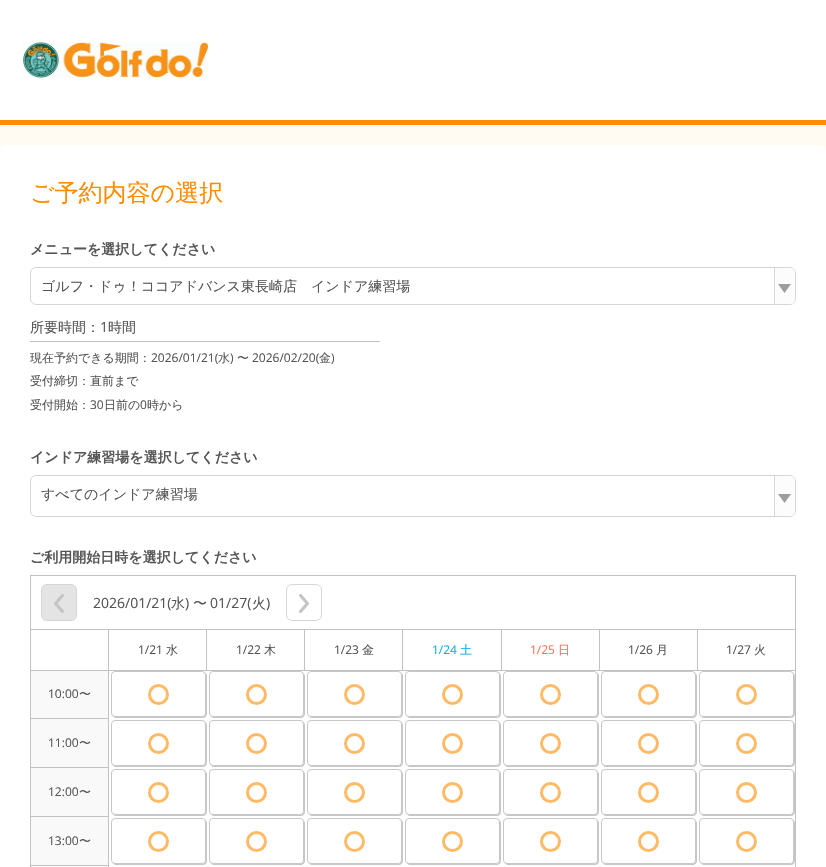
void draw(SkCanvas* canvas) {
	SkPaint fill;
	fill.setAntiAlias(true);
	auto makeFont = [&](const char* family, int weight, float size, bool italic = false) {
		SkFontStyle style(weight, SkFontStyle::kNormal_Width,
			italic ? SkFontStyle::kItalic_Slant : SkFontStyle::kUpright_Slant);
		SkFont result(fontMgr->matchFamilyStyle(family, style), size);
		result.setSubpixel(true);
		return result;
	};
	auto text = [&](const char* s, float x, float y, const SkFont& font) {
		canvas->drawString(s, x, y, font, fill);
	};
	auto box = [&](float l, float t, float r, float b) {
		canvas->drawRect(SkRect::MakeLTRB(l, t, r, b), fill);
	};
	auto roundBox = [&](float l, float t, float r, float b, float radius) {
		canvas->drawRoundRect(SkRect::MakeLTRB(l, t, r, b), radius, radius, fill);
	};
	auto picture = [&](const char* path, float l, float t, float r, float b) {
		auto image = SkImages::DeferredFromEncodedData(SkData::MakeFromFileName(path));
		canvas->drawImageRect(image, SkRect::MakeLTRB(l, t, r, b), SkSamplingOptions());
	};
	canvas->clear(0xFFFFFFFF);
	fill.setColor(0xFFFF8C00);
	box(0, 120, 826, 125);
	picture("image0.png", 23, 42, 208, 78);
	fill.setColor(0xFFFFFAF2);
	box(0, 125, 826, 150);
	fill.setColor(0xFFFFFFFF);
	roundBox(0, 145, 826, 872, 5);
	fill.setStyle(SkPaint::kStroke_Style);
	fill.setStrokeWidth(1);
	fill.setColor(0xFFD7D6D6);
	canvas->drawRoundRect(SkRect::MakeLTRB(30.5f, 267.5f, 795.5f, 304.5f), 5.5f, 5.5f, fill);
	fill.setStyle(SkPaint::kFill_Style);
	fill.setColor(0xFFFCFCFC);
	canvas->drawPath(SkPathBuilder().moveTo(774, 268).lineTo(790, 268).cubicTo(793, 268, 795, 270, 795, 273).lineTo(795, 299).cubicTo(795, 302, 793, 304, 790, 304).lineTo(774, 304).close().detach(), fill);
	fill.setColor(0xFFD7D6D6);
	box(774, 268, 775, 304);
	picture("image1.png", 778, 284, 791, 293);
	fill.setColor(0xFFC2C2C2);
	box(30, 341, 380, 342);
	fill.setStyle(SkPaint::kStroke_Style);
	fill.setColor(0xFFD7D6D6);
	canvas->drawRoundRect(SkRect::MakeLTRB(30.5f, 475.5f, 795.5f, 516.5f), 5.5f, 5.5f, fill);
	fill.setStyle(SkPaint::kFill_Style);
	fill.setColor(0xFFFCFCFC);
	canvas->drawPath(SkPathBuilder().moveTo(774, 476).lineTo(790, 476).cubicTo(793, 476, 795, 478, 795, 481).lineTo(795, 511).cubicTo(795, 514, 793, 516, 790, 516).lineTo(774, 516).close().detach(), fill);
	fill.setColor(0xFFD7D6D6);
	box(774, 476, 775, 516);
	picture("image1.png", 778, 494, 791, 503);
	fill.setColor(0xFFC2C2C2);
	box(30, 575, 796, 576);
	box(795, 575, 796, 629);
	box(30, 575, 31, 629);
	fill.setColor(0xFFE4E4E4);
	canvas->drawRoundRect(SkRect::MakeLTRB(41.5f, 584.5f, 76.5f, 620.5f), 5.5f, 5.5f, fill);
	fill.setStyle(SkPaint::kStroke_Style);
	fill.setColor(0xFFD7D6D6);
	canvas->drawRoundRect(SkRect::MakeLTRB(41.5f, 584.5f, 76.5f, 620.5f), 5.5f, 5.5f, fill);
	picture("image2.png", 54, 594, 64, 613);
	canvas->drawRoundRect(SkRect::MakeLTRB(286.5f, 584.5f, 321.5f, 620.5f), 5.5f, 5.5f, fill);
	picture("image3.png", 299, 594, 309, 613);
	fill.setColor(0xFFC2C2C2);
	canvas->drawRect(SkRect::MakeLTRB(30.5f, 629.5f, 108.5f, 670.5f), fill);
	fill.setStyle(SkPaint::kFill_Style);
	box(109, 629, 796, 630);
	box(206, 629, 207, 671);
	box(109, 670, 207, 671);
	box(304, 629, 305, 671);
	box(207, 670, 305, 671);
	box(402, 629, 403, 671);
	box(305, 670, 403, 671);
	box(501, 629, 502, 671);
	box(403, 670, 502, 671);
	box(599, 629, 600, 671);
	box(502, 670, 600, 671);
	box(697, 629, 698, 671);
	box(600, 670, 698, 671);
	box(795, 629, 796, 867);
	box(698, 670, 796, 671);
	box(30, 671, 31, 867);
	fill.setColor(0xFFF9F9F9);
	box(31, 671, 108, 867);
	fill.setColor(0xFFC2C2C2);
	box(108, 671, 109, 867);
	box(31, 718, 108, 719);
	box(31, 767, 108, 768);
	box(31, 816, 108, 817);
	box(31, 865, 108, 866);
	fill.setColor(0xFFC7C7C7);
	canvas->drawPath(SkPathBuilder().moveTo(113, 716).cubicTo(113, 717, 115, 718, 116, 718).lineTo(203, 718).cubicTo(205, 718, 207, 716, 207, 714).lineTo(207, 676).cubicTo(207, 675, 206, 673, 205, 673).lineTo(206, 675).lineTo(206, 713).cubicTo(206, 715, 204, 717, 202, 717).lineTo(115, 717).close().detach(), fill);
	fill.setStyle(SkPaint::kStroke_Style);
	canvas->drawRoundRect(SkRect::MakeLTRB(111.5f, 671.5f, 205.5f, 716.5f), 3.5f, 3.5f, fill);
	fill.setStrokeWidth(3);
	fill.setColor(0xFFFFBA66);
	canvas->drawCircle(158.5f, 694.5f, 9, fill);
	fill.setStyle(SkPaint::kFill_Style);
	fill.setColor(0xFFC7C7C7);
	canvas->drawPath(SkPathBuilder().moveTo(113, 765).cubicTo(113, 766, 115, 767, 116, 767).lineTo(203, 767).cubicTo(205, 767, 207, 765, 207, 763).lineTo(207, 725).cubicTo(207, 724, 206, 722, 205, 722).lineTo(206, 724).lineTo(206, 762).cubicTo(206, 764, 204, 766, 202, 766).lineTo(115, 766).close().detach(), fill);
	fill.setStyle(SkPaint::kStroke_Style);
	fill.setStrokeWidth(1);
	canvas->drawRoundRect(SkRect::MakeLTRB(111.5f, 720.5f, 205.5f, 765.5f), 3.5f, 3.5f, fill);
	fill.setStrokeWidth(3);
	fill.setColor(0xFFFFBA66);
	canvas->drawCircle(158.5f, 743.5f, 9, fill);
	fill.setStyle(SkPaint::kFill_Style);
	fill.setColor(0xFFC7C7C7);
	canvas->drawPath(SkPathBuilder().moveTo(113, 814).cubicTo(113, 815, 115, 816, 116, 816).lineTo(203, 816).cubicTo(205, 816, 207, 814, 207, 812).lineTo(207, 774).cubicTo(207, 773, 206, 771, 205, 771).lineTo(206, 773).lineTo(206, 811).cubicTo(206, 813, 204, 815, 202, 815).lineTo(115, 815).close().detach(), fill);
	fill.setStyle(SkPaint::kStroke_Style);
	fill.setStrokeWidth(1);
	canvas->drawRoundRect(SkRect::MakeLTRB(111.5f, 769.5f, 205.5f, 814.5f), 3.5f, 3.5f, fill);
	fill.setStrokeWidth(3);
	fill.setColor(0xFFFFBA66);
	canvas->drawCircle(158.5f, 792.5f, 9, fill);
	fill.setStyle(SkPaint::kFill_Style);
	fill.setColor(0xFFC7C7C7);
	canvas->drawPath(SkPathBuilder().moveTo(113, 863).cubicTo(113, 864, 115, 865, 116, 865).lineTo(203, 865).cubicTo(205, 865, 207, 863, 207, 861).lineTo(207, 823).cubicTo(207, 822, 206, 820, 205, 820).lineTo(206, 822).lineTo(206, 860).cubicTo(206, 862, 204, 864, 202, 864).lineTo(115, 864).close().detach(), fill);
	fill.setStyle(SkPaint::kStroke_Style);
	fill.setStrokeWidth(1);
	canvas->drawRoundRect(SkRect::MakeLTRB(111.5f, 818.5f, 205.5f, 863.5f), 3.5f, 3.5f, fill);
	fill.setStrokeWidth(3);
	fill.setColor(0xFFFFBA66);
	canvas->drawCircle(158.5f, 841.5f, 9, fill);
	fill.setStyle(SkPaint::kFill_Style);
	fill.setColor(0xFFC7C7C7);
	canvas->drawPath(SkPathBuilder().moveTo(211, 716).cubicTo(211, 717, 213, 718, 214, 718).lineTo(301, 718).cubicTo(303, 718, 305, 716, 305, 714).lineTo(305, 676).cubicTo(305, 675, 304, 673, 303, 673).lineTo(304, 675).lineTo(304, 713).cubicTo(304, 715, 302, 717, 300, 717).lineTo(213, 717).close().detach(), fill);
	fill.setStyle(SkPaint::kStroke_Style);
	fill.setStrokeWidth(1);
	canvas->drawRoundRect(SkRect::MakeLTRB(209.5f, 671.5f, 303.5f, 716.5f), 3.5f, 3.5f, fill);
	fill.setStrokeWidth(3);
	fill.setColor(0xFFFFBA66);
	canvas->drawCircle(256.5f, 694.5f, 9, fill);
	fill.setStyle(SkPaint::kFill_Style);
	fill.setColor(0xFFC7C7C7);
	canvas->drawPath(SkPathBuilder().moveTo(211, 765).cubicTo(211, 766, 213, 767, 214, 767).lineTo(301, 767).cubicTo(303, 767, 305, 765, 305, 763).lineTo(305, 725).cubicTo(305, 724, 304, 722, 303, 722).lineTo(304, 724).lineTo(304, 762).cubicTo(304, 764, 302, 766, 300, 766).lineTo(213, 766).close().detach(), fill);
	fill.setStyle(SkPaint::kStroke_Style);
	fill.setStrokeWidth(1);
	canvas->drawRoundRect(SkRect::MakeLTRB(209.5f, 720.5f, 303.5f, 765.5f), 3.5f, 3.5f, fill);
	fill.setStrokeWidth(3);
	fill.setColor(0xFFFFBA66);
	canvas->drawCircle(256.5f, 743.5f, 9, fill);
	fill.setStyle(SkPaint::kFill_Style);
	fill.setColor(0xFFC7C7C7);
	canvas->drawPath(SkPathBuilder().moveTo(211, 814).cubicTo(211, 815, 213, 816, 214, 816).lineTo(301, 816).cubicTo(303, 816, 305, 814, 305, 812).lineTo(305, 774).cubicTo(305, 773, 304, 771, 303, 771).lineTo(304, 773).lineTo(304, 811).cubicTo(304, 813, 302, 815, 300, 815).lineTo(213, 815).close().detach(), fill);
	fill.setStyle(SkPaint::kStroke_Style);
	fill.setStrokeWidth(1);
	canvas->drawRoundRect(SkRect::MakeLTRB(209.5f, 769.5f, 303.5f, 814.5f), 3.5f, 3.5f, fill);
	fill.setStrokeWidth(3);
	fill.setColor(0xFFFFBA66);
	canvas->drawCircle(256.5f, 792.5f, 9, fill);
	fill.setStyle(SkPaint::kFill_Style);
	fill.setColor(0xFFC7C7C7);
	canvas->drawPath(SkPathBuilder().moveTo(211, 863).cubicTo(211, 864, 213, 865, 214, 865).lineTo(301, 865).cubicTo(303, 865, 305, 863, 305, 861).lineTo(305, 823).cubicTo(305, 822, 304, 820, 303, 820).lineTo(304, 822).lineTo(304, 860).cubicTo(304, 862, 302, 864, 300, 864).lineTo(213, 864).close().detach(), fill);
	fill.setStyle(SkPaint::kStroke_Style);
	fill.setStrokeWidth(1);
	canvas->drawRoundRect(SkRect::MakeLTRB(209.5f, 818.5f, 303.5f, 863.5f), 3.5f, 3.5f, fill);
	fill.setStrokeWidth(3);
	fill.setColor(0xFFFFBA66);
	canvas->drawCircle(256.5f, 841.5f, 9, fill);
	fill.setStyle(SkPaint::kFill_Style);
	fill.setColor(0xFFC7C7C7);
	canvas->drawPath(SkPathBuilder().moveTo(309, 716).cubicTo(309, 717, 311, 718, 312, 718).lineTo(399, 718).cubicTo(401, 718, 403, 716, 403, 714).lineTo(403, 676).cubicTo(403, 675, 402, 673, 401, 673).lineTo(402, 675).lineTo(402, 713).cubicTo(402, 715, 400, 717, 398, 717).lineTo(311, 717).close().detach(), fill);
	fill.setStyle(SkPaint::kStroke_Style);
	fill.setStrokeWidth(1);
	canvas->drawRoundRect(SkRect::MakeLTRB(307.5f, 671.5f, 401.5f, 716.5f), 3.5f, 3.5f, fill);
	fill.setStrokeWidth(3);
	fill.setColor(0xFFFFBA66);
	canvas->drawCircle(354.5f, 694.5f, 9, fill);
	fill.setStyle(SkPaint::kFill_Style);
	fill.setColor(0xFFC7C7C7);
	canvas->drawPath(SkPathBuilder().moveTo(309, 765).cubicTo(309, 766, 311, 767, 312, 767).lineTo(399, 767).cubicTo(401, 767, 403, 765, 403, 763).lineTo(403, 725).cubicTo(403, 724, 402, 722, 401, 722).lineTo(402, 724).lineTo(402, 762).cubicTo(402, 764, 400, 766, 398, 766).lineTo(311, 766).close().detach(), fill);
	fill.setStyle(SkPaint::kStroke_Style);
	fill.setStrokeWidth(1);
	canvas->drawRoundRect(SkRect::MakeLTRB(307.5f, 720.5f, 401.5f, 765.5f), 3.5f, 3.5f, fill);
	fill.setStrokeWidth(3);
	fill.setColor(0xFFFFBA66);
	canvas->drawCircle(354.5f, 743.5f, 9, fill);
	fill.setStyle(SkPaint::kFill_Style);
	fill.setColor(0xFFC7C7C7);
	canvas->drawPath(SkPathBuilder().moveTo(309, 814).cubicTo(309, 815, 311, 816, 312, 816).lineTo(399, 816).cubicTo(401, 816, 403, 814, 403, 812).lineTo(403, 774).cubicTo(403, 773, 402, 771, 401, 771).lineTo(402, 773).lineTo(402, 811).cubicTo(402, 813, 400, 815, 398, 815).lineTo(311, 815).close().detach(), fill);
	fill.setStyle(SkPaint::kStroke_Style);
	fill.setStrokeWidth(1);
	canvas->drawRoundRect(SkRect::MakeLTRB(307.5f, 769.5f, 401.5f, 814.5f), 3.5f, 3.5f, fill);
	fill.setStrokeWidth(3);
	fill.setColor(0xFFFFBA66);
	canvas->drawCircle(354.5f, 792.5f, 9, fill);
	fill.setStyle(SkPaint::kFill_Style);
	fill.setColor(0xFFC7C7C7);
	canvas->drawPath(SkPathBuilder().moveTo(309, 863).cubicTo(309, 864, 311, 865, 312, 865).lineTo(399, 865).cubicTo(401, 865, 403, 863, 403, 861).lineTo(403, 823).cubicTo(403, 822, 402, 820, 401, 820).lineTo(402, 822).lineTo(402, 860).cubicTo(402, 862, 400, 864, 398, 864).lineTo(311, 864).close().detach(), fill);
	fill.setStyle(SkPaint::kStroke_Style);
	fill.setStrokeWidth(1);
	canvas->drawRoundRect(SkRect::MakeLTRB(307.5f, 818.5f, 401.5f, 863.5f), 3.5f, 3.5f, fill);
	fill.setStrokeWidth(3);
	fill.setColor(0xFFFFBA66);
	canvas->drawCircle(354.5f, 841.5f, 9, fill);
	fill.setStyle(SkPaint::kFill_Style);
	fill.setColor(0xFFC7C7C7);
	canvas->drawPath(SkPathBuilder().moveTo(407, 716).cubicTo(407, 717, 409, 718, 410, 718).lineTo(497, 718).cubicTo(499, 718, 501, 716, 501, 714).lineTo(501, 676).cubicTo(501, 675, 500, 673, 499, 673).lineTo(500, 675).lineTo(500, 713).cubicTo(500, 715, 498, 717, 496, 717).lineTo(409, 717).close().detach(), fill);
	fill.setStyle(SkPaint::kStroke_Style);
	fill.setStrokeWidth(1);
	canvas->drawRoundRect(SkRect::MakeLTRB(405.5f, 671.5f, 499.5f, 716.5f), 3.5f, 3.5f, fill);
	fill.setStrokeWidth(3);
	fill.setColor(0xFFFFBA66);
	canvas->drawCircle(452.5f, 694.5f, 9, fill);
	fill.setStyle(SkPaint::kFill_Style);
	fill.setColor(0xFFC7C7C7);
	canvas->drawPath(SkPathBuilder().moveTo(407, 765).cubicTo(407, 766, 409, 767, 410, 767).lineTo(497, 767).cubicTo(499, 767, 501, 765, 501, 763).lineTo(501, 725).cubicTo(501, 724, 500, 722, 499, 722).lineTo(500, 724).lineTo(500, 762).cubicTo(500, 764, 498, 766, 496, 766).lineTo(409, 766).close().detach(), fill);
	fill.setStyle(SkPaint::kStroke_Style);
	fill.setStrokeWidth(1);
	canvas->drawRoundRect(SkRect::MakeLTRB(405.5f, 720.5f, 499.5f, 765.5f), 3.5f, 3.5f, fill);
	fill.setStrokeWidth(3);
	fill.setColor(0xFFFFBA66);
	canvas->drawCircle(452.5f, 743.5f, 9, fill);
	fill.setStyle(SkPaint::kFill_Style);
	fill.setColor(0xFFC7C7C7);
	canvas->drawPath(SkPathBuilder().moveTo(407, 814).cubicTo(407, 815, 409, 816, 410, 816).lineTo(497, 816).cubicTo(499, 816, 501, 814, 501, 812).lineTo(501, 774).cubicTo(501, 773, 500, 771, 499, 771).lineTo(500, 773).lineTo(500, 811).cubicTo(500, 813, 498, 815, 496, 815).lineTo(409, 815).close().detach(), fill);
	fill.setStyle(SkPaint::kStroke_Style);
	fill.setStrokeWidth(1);
	canvas->drawRoundRect(SkRect::MakeLTRB(405.5f, 769.5f, 499.5f, 814.5f), 3.5f, 3.5f, fill);
	fill.setStrokeWidth(3);
	fill.setColor(0xFFFFBA66);
	canvas->drawCircle(452.5f, 792.5f, 9, fill);
	fill.setStyle(SkPaint::kFill_Style);
	fill.setColor(0xFFC7C7C7);
	canvas->drawPath(SkPathBuilder().moveTo(407, 863).cubicTo(407, 864, 409, 865, 410, 865).lineTo(497, 865).cubicTo(499, 865, 501, 863, 501, 861).lineTo(501, 823).cubicTo(501, 822, 500, 820, 499, 820).lineTo(500, 822).lineTo(500, 860).cubicTo(500, 862, 498, 864, 496, 864).lineTo(409, 864).close().detach(), fill);
	fill.setStyle(SkPaint::kStroke_Style);
	fill.setStrokeWidth(1);
	canvas->drawRoundRect(SkRect::MakeLTRB(405.5f, 818.5f, 499.5f, 863.5f), 3.5f, 3.5f, fill);
	fill.setStrokeWidth(3);
	fill.setColor(0xFFFFBA66);
	canvas->drawCircle(452.5f, 841.5f, 9, fill);
	fill.setStyle(SkPaint::kFill_Style);
	fill.setColor(0xFFC7C7C7);
	canvas->drawPath(SkPathBuilder().moveTo(505, 716).cubicTo(505, 717, 507, 718, 508, 718).lineTo(595, 718).cubicTo(597, 718, 599, 716, 599, 714).lineTo(599, 676).cubicTo(599, 675, 598, 673, 597, 673).lineTo(598, 675).lineTo(598, 713).cubicTo(598, 715, 596, 717, 594, 717).lineTo(507, 717).close().detach(), fill);
	fill.setStyle(SkPaint::kStroke_Style);
	fill.setStrokeWidth(1);
	canvas->drawRoundRect(SkRect::MakeLTRB(503.5f, 671.5f, 597.5f, 716.5f), 3.5f, 3.5f, fill);
	fill.setStrokeWidth(3);
	fill.setColor(0xFFFFBA66);
	canvas->drawCircle(550.5f, 694.5f, 9, fill);
	fill.setStyle(SkPaint::kFill_Style);
	fill.setColor(0xFFC7C7C7);
	canvas->drawPath(SkPathBuilder().moveTo(505, 765).cubicTo(505, 766, 507, 767, 508, 767).lineTo(595, 767).cubicTo(597, 767, 599, 765, 599, 763).lineTo(599, 725).cubicTo(599, 724, 598, 722, 597, 722).lineTo(598, 724).lineTo(598, 762).cubicTo(598, 764, 596, 766, 594, 766).lineTo(507, 766).close().detach(), fill);
	fill.setStyle(SkPaint::kStroke_Style);
	fill.setStrokeWidth(1);
	canvas->drawRoundRect(SkRect::MakeLTRB(503.5f, 720.5f, 597.5f, 765.5f), 3.5f, 3.5f, fill);
	fill.setStrokeWidth(3);
	fill.setColor(0xFFFFBA66);
	canvas->drawCircle(550.5f, 743.5f, 9, fill);
	fill.setStyle(SkPaint::kFill_Style);
	fill.setColor(0xFFC7C7C7);
	canvas->drawPath(SkPathBuilder().moveTo(505, 814).cubicTo(505, 815, 507, 816, 508, 816).lineTo(595, 816).cubicTo(597, 816, 599, 814, 599, 812).lineTo(599, 774).cubicTo(599, 773, 598, 771, 597, 771).lineTo(598, 773).lineTo(598, 811).cubicTo(598, 813, 596, 815, 594, 815).lineTo(507, 815).close().detach(), fill);
	fill.setStyle(SkPaint::kStroke_Style);
	fill.setStrokeWidth(1);
	canvas->drawRoundRect(SkRect::MakeLTRB(503.5f, 769.5f, 597.5f, 814.5f), 3.5f, 3.5f, fill);
	fill.setStrokeWidth(3);
	fill.setColor(0xFFFFBA66);
	canvas->drawCircle(550.5f, 792.5f, 9, fill);
	fill.setStyle(SkPaint::kFill_Style);
	fill.setColor(0xFFC7C7C7);
	canvas->drawPath(SkPathBuilder().moveTo(505, 863).cubicTo(505, 864, 507, 865, 508, 865).lineTo(595, 865).cubicTo(597, 865, 599, 863, 599, 861).lineTo(599, 823).cubicTo(599, 822, 598, 820, 597, 820).lineTo(598, 822).lineTo(598, 860).cubicTo(598, 862, 596, 864, 594, 864).lineTo(507, 864).close().detach(), fill);
	fill.setStyle(SkPaint::kStroke_Style);
	fill.setStrokeWidth(1);
	canvas->drawRoundRect(SkRect::MakeLTRB(503.5f, 818.5f, 597.5f, 863.5f), 3.5f, 3.5f, fill);
	fill.setStrokeWidth(3);
	fill.setColor(0xFFFFBA66);
	canvas->drawCircle(550.5f, 841.5f, 9, fill);
	fill.setStyle(SkPaint::kFill_Style);
	fill.setColor(0xFFC7C7C7);
	canvas->drawPath(SkPathBuilder().moveTo(603, 716).cubicTo(603, 717, 605, 718, 606, 718).lineTo(693, 718).cubicTo(695, 718, 697, 716, 697, 714).lineTo(697, 676).cubicTo(697, 675, 696, 673, 695, 673).lineTo(696, 675).lineTo(696, 713).cubicTo(696, 715, 694, 717, 692, 717).lineTo(605, 717).close().detach(), fill);
	fill.setStyle(SkPaint::kStroke_Style);
	fill.setStrokeWidth(1);
	canvas->drawRoundRect(SkRect::MakeLTRB(601.5f, 671.5f, 695.5f, 716.5f), 3.5f, 3.5f, fill);
	fill.setStrokeWidth(3);
	fill.setColor(0xFFFFBA66);
	canvas->drawCircle(648.5f, 694.5f, 9, fill);
	fill.setStyle(SkPaint::kFill_Style);
	fill.setColor(0xFFC7C7C7);
	canvas->drawPath(SkPathBuilder().moveTo(603, 765).cubicTo(603, 766, 605, 767, 606, 767).lineTo(693, 767).cubicTo(695, 767, 697, 765, 697, 763).lineTo(697, 725).cubicTo(697, 724, 696, 722, 695, 722).lineTo(696, 724).lineTo(696, 762).cubicTo(696, 764, 694, 766, 692, 766).lineTo(605, 766).close().detach(), fill);
	fill.setStyle(SkPaint::kStroke_Style);
	fill.setStrokeWidth(1);
	canvas->drawRoundRect(SkRect::MakeLTRB(601.5f, 720.5f, 695.5f, 765.5f), 3.5f, 3.5f, fill);
	fill.setStrokeWidth(3);
	fill.setColor(0xFFFFBA66);
	canvas->drawCircle(648.5f, 743.5f, 9, fill);
	fill.setStyle(SkPaint::kFill_Style);
	fill.setColor(0xFFC7C7C7);
	canvas->drawPath(SkPathBuilder().moveTo(603, 814).cubicTo(603, 815, 605, 816, 606, 816).lineTo(693, 816).cubicTo(695, 816, 697, 814, 697, 812).lineTo(697, 774).cubicTo(697, 773, 696, 771, 695, 771).lineTo(696, 773).lineTo(696, 811).cubicTo(696, 813, 694, 815, 692, 815).lineTo(605, 815).close().detach(), fill);
	fill.setStyle(SkPaint::kStroke_Style);
	fill.setStrokeWidth(1);
	canvas->drawRoundRect(SkRect::MakeLTRB(601.5f, 769.5f, 695.5f, 814.5f), 3.5f, 3.5f, fill);
	fill.setStrokeWidth(3);
	fill.setColor(0xFFFFBA66);
	canvas->drawCircle(648.5f, 792.5f, 9, fill);
	fill.setStyle(SkPaint::kFill_Style);
	fill.setColor(0xFFC7C7C7);
	canvas->drawPath(SkPathBuilder().moveTo(603, 863).cubicTo(603, 864, 605, 865, 606, 865).lineTo(693, 865).cubicTo(695, 865, 697, 863, 697, 861).lineTo(697, 823).cubicTo(697, 822, 696, 820, 695, 820).lineTo(696, 822).lineTo(696, 860).cubicTo(696, 862, 694, 864, 692, 864).lineTo(605, 864).close().detach(), fill);
	fill.setStyle(SkPaint::kStroke_Style);
	fill.setStrokeWidth(1);
	canvas->drawRoundRect(SkRect::MakeLTRB(601.5f, 818.5f, 695.5f, 863.5f), 3.5f, 3.5f, fill);
	fill.setStrokeWidth(3);
	fill.setColor(0xFFFFBA66);
	canvas->drawCircle(648.5f, 841.5f, 9, fill);
	fill.setStyle(SkPaint::kFill_Style);
	fill.setColor(0xFFC7C7C7);
	canvas->drawPath(SkPathBuilder().moveTo(701, 716).cubicTo(701, 717, 703, 718, 704, 718).lineTo(791, 718).cubicTo(793, 718, 795, 716, 795, 714).lineTo(795, 676).cubicTo(795, 675, 794, 673, 793, 673).lineTo(794, 675).lineTo(794, 713).cubicTo(794, 715, 792, 717, 790, 717).lineTo(703, 717).close().detach(), fill);
	fill.setStyle(SkPaint::kStroke_Style);
	fill.setStrokeWidth(1);
	canvas->drawRoundRect(SkRect::MakeLTRB(699.5f, 671.5f, 793.5f, 716.5f), 3.5f, 3.5f, fill);
	fill.setStrokeWidth(3);
	fill.setColor(0xFFFFBA66);
	canvas->drawCircle(746.5f, 694.5f, 9, fill);
	fill.setStyle(SkPaint::kFill_Style);
	fill.setColor(0xFFC7C7C7);
	canvas->drawPath(SkPathBuilder().moveTo(701, 765).cubicTo(701, 766, 703, 767, 704, 767).lineTo(791, 767).cubicTo(793, 767, 795, 765, 795, 763).lineTo(795, 725).cubicTo(795, 724, 794, 722, 793, 722).lineTo(794, 724).lineTo(794, 762).cubicTo(794, 764, 792, 766, 790, 766).lineTo(703, 766).close().detach(), fill);
	fill.setStyle(SkPaint::kStroke_Style);
	fill.setStrokeWidth(1);
	canvas->drawRoundRect(SkRect::MakeLTRB(699.5f, 720.5f, 793.5f, 765.5f), 3.5f, 3.5f, fill);
	fill.setStrokeWidth(3);
	fill.setColor(0xFFFFBA66);
	canvas->drawCircle(746.5f, 743.5f, 9, fill);
	fill.setStyle(SkPaint::kFill_Style);
	fill.setColor(0xFFC7C7C7);
	canvas->drawPath(SkPathBuilder().moveTo(701, 814).cubicTo(701, 815, 703, 816, 704, 816).lineTo(791, 816).cubicTo(793, 816, 795, 814, 795, 812).lineTo(795, 774).cubicTo(795, 773, 794, 771, 793, 771).lineTo(794, 773).lineTo(794, 811).cubicTo(794, 813, 792, 815, 790, 815).lineTo(703, 815).close().detach(), fill);
	fill.setStyle(SkPaint::kStroke_Style);
	fill.setStrokeWidth(1);
	canvas->drawRoundRect(SkRect::MakeLTRB(699.5f, 769.5f, 793.5f, 814.5f), 3.5f, 3.5f, fill);
	fill.setStrokeWidth(3);
	fill.setColor(0xFFFFBA66);
	canvas->drawCircle(746.5f, 792.5f, 9, fill);
	fill.setStyle(SkPaint::kFill_Style);
	fill.setColor(0xFFC7C7C7);
	canvas->drawPath(SkPathBuilder().moveTo(701, 863).cubicTo(701, 864, 703, 865, 704, 865).lineTo(791, 865).cubicTo(793, 865, 795, 863, 795, 861).lineTo(795, 823).cubicTo(795, 822, 794, 820, 793, 820).lineTo(794, 822).lineTo(794, 860).cubicTo(794, 862, 792, 864, 790, 864).lineTo(703, 864).close().detach(), fill);
	fill.setStyle(SkPaint::kStroke_Style);
	fill.setStrokeWidth(1);
	canvas->drawRoundRect(SkRect::MakeLTRB(699.5f, 818.5f, 793.5f, 863.5f), 3.5f, 3.5f, fill);
	fill.setStrokeWidth(3);
	fill.setColor(0xFFFFBA66);
	canvas->drawCircle(746.5f, 841.5f, 9, fill);
	auto font1 = makeFont("WenQuanYi Zen Hei", 500, 24);
	fill.setStyle(SkPaint::kFill_Style);
	fill.setColor(0xFFFF8C00);
	text("ご予約内容の選択", 30, 201, font1);
	auto font2 = makeFont("WenQuanYi Zen Hei", 700, 14);
	fill.setColor(0xFF555555);
	text("メニューを選択してください", 30, 254, font2);
	auto font3 = makeFont("WenQuanYi Zen Hei", 500, 14);
	text("ゴルフ・ドゥ！ココアドバンス東長崎店　インドア練習場", 41, 291, font3);
	text("所要時間：", 30, 332, font3);
	auto font4 = makeFont("Open Sans", 400, 14);
	text("1", 100, 332, font4);
	text("時間", 108, 332, font3);
	auto font5 = makeFont("WenQuanYi Zen Hei", 500, 12);
	text("現在予約できる期間：", 30, 362, font5);
	auto font6 = makeFont("Open Sans", 400, 12);
	text("2026/01/21(", 151, 362, font6);
	text("水", 218, 362, font5);
	text(")", 230, 362, font6);
	text("〜", 237, 362, font5);
	text("2026/02/20(", 252, 362, font6);
	text("金", 319, 362, font5);
	text(")", 331, 362, font6);
	text("受付締切：直前まで", 30, 385, font5);
	text("受付開始：", 30, 409, font5);
	text("30", 90, 409, font6);
	text("日前の", 104, 409, font5);
	text("0", 140, 409, font6);
	text("時から", 147, 409, font5);
	text("インドア練習場を選択してください", 30, 462, font2);
	text("すべてのインドア練習場", 41, 499, font3);
	text("ご利用開始日時を選択してください", 30, 562, font2);
	text("2026/01/21(", 93, 608, font4);
	text("水", 171, 608, font3);
	text(")", 185, 608, font4);
	text("〜", 193, 608, font3);
	text("01/27(", 210, 608, font4);
	text("火", 252, 608, font3);
	text(")", 266, 608, font4);
	text("1/21", 138, 654, font6);
	text("水", 166, 654, font5);
	text("1/22", 236, 654, font6);
	text("木", 264, 654, font5);
	text("1/23", 334, 654, font6);
	text("金", 362, 654, font5);
	fill.setColor(0xFF08ADE7);
	text("1/24", 432, 654, font6);
	text("土", 460, 654, font5);
	fill.setColor(0xFFFF7153);
	text("1/25", 530, 654, font6);
	text("日", 558, 654, font5);
	fill.setColor(0xFF555555);
	text("1/26", 628, 654, font6);
	text("月", 656, 654, font5);
	text("1/27", 726, 654, font6);
	text("火", 754, 654, font5);
	text("10:00", 48, 698, font6);
	text("〜", 79, 698, font5);
	text("11:00", 48, 747, font6);
	text("〜", 79, 747, font5);
	text("12:00", 48, 796, font6);
	text("〜", 79, 796, font5);
	text("13:00", 48, 845, font6);
	text("〜", 79, 845, font5);
}
